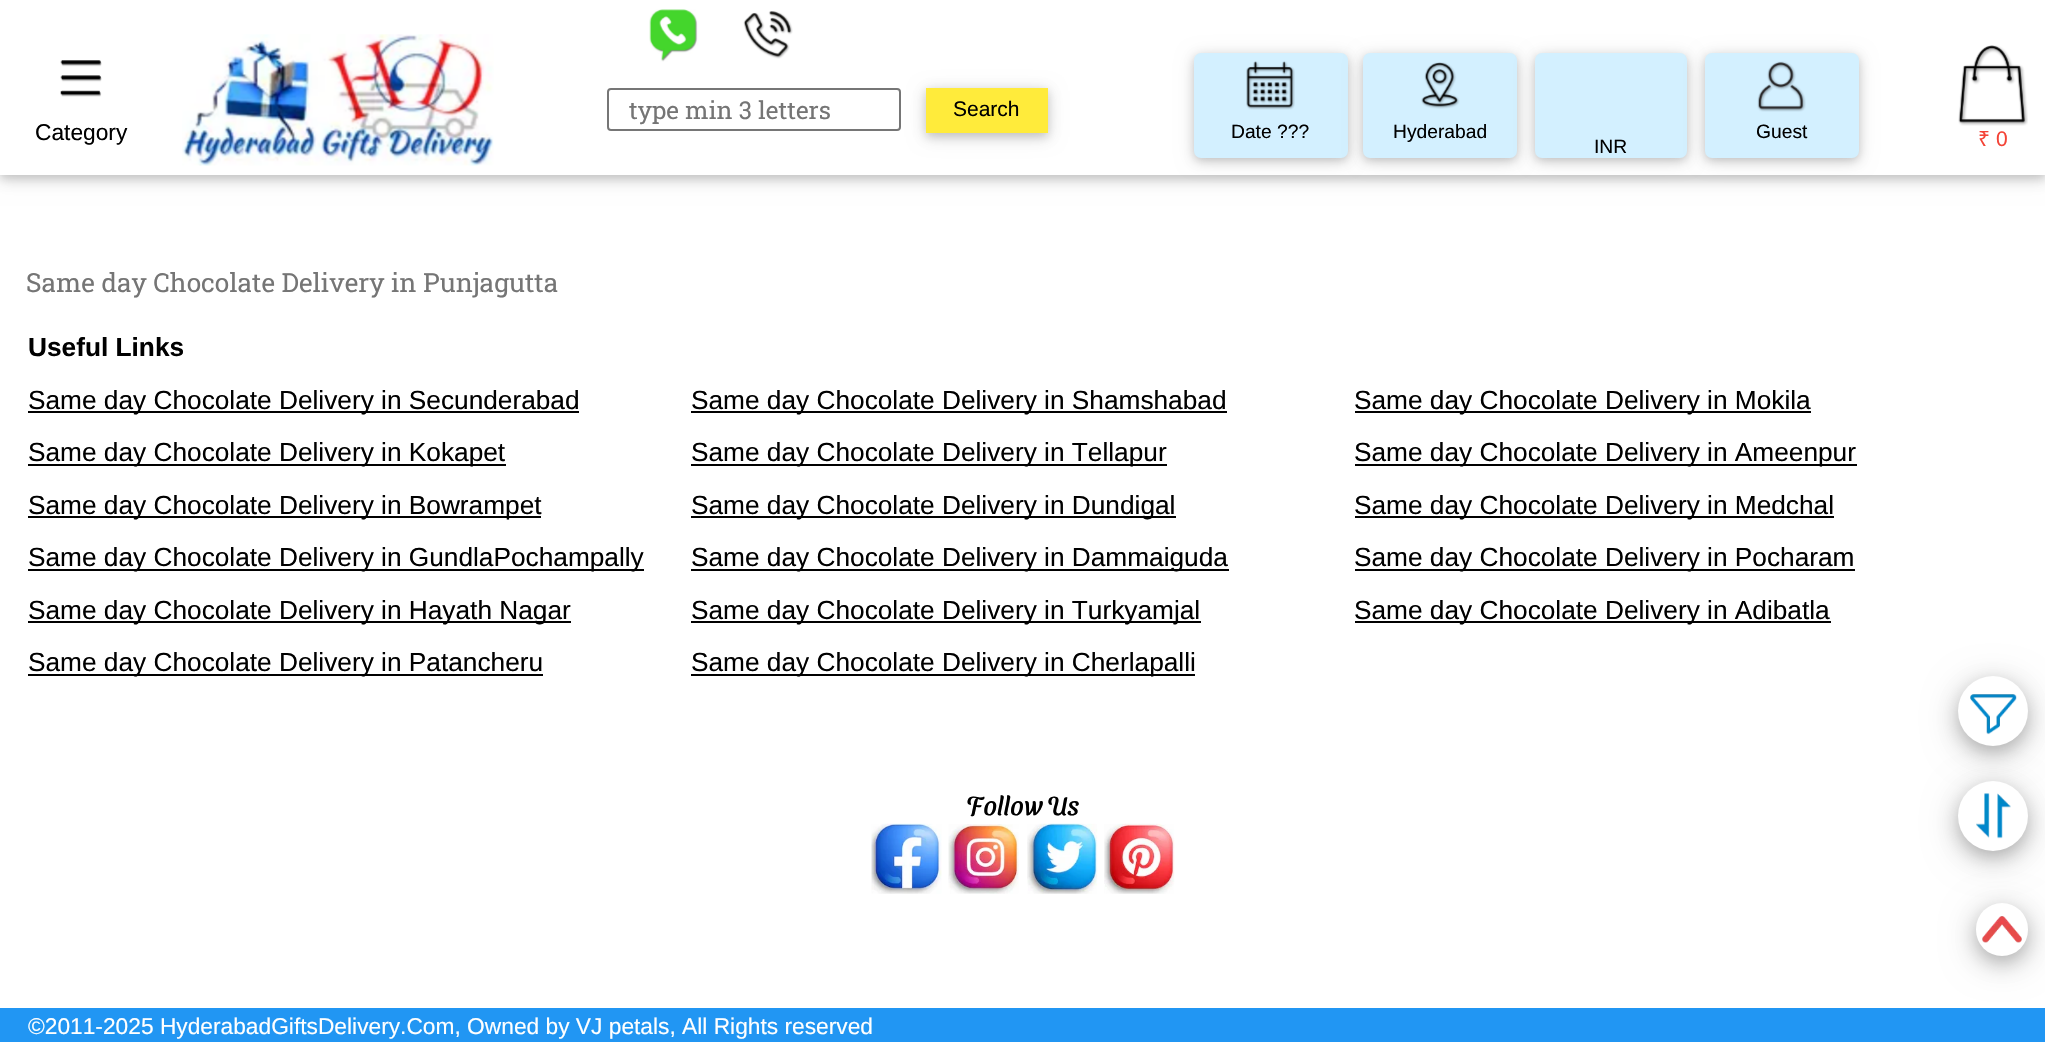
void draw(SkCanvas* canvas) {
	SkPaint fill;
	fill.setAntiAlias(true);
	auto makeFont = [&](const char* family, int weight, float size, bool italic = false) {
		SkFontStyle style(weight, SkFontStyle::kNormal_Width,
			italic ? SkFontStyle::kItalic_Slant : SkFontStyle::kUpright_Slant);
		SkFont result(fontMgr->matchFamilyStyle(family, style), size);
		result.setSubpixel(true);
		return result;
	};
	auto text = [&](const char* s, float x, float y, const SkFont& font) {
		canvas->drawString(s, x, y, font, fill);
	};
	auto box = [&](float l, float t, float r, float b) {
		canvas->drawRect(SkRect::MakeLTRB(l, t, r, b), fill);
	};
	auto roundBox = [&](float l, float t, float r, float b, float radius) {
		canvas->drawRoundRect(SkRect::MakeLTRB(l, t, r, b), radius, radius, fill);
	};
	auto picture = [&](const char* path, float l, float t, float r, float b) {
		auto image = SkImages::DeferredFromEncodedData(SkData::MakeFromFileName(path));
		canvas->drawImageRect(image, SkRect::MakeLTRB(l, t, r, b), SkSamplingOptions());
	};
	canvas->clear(0xFFFFFFFF);
	fill.setColor(0x1F000000);
	fill.setMaskFilter(SkMaskFilter::MakeBlur(kNormal_SkBlurStyle, 9));
	canvas->drawRect(SkRect::MakeLTRB(0, 4, 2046, 179), fill);
	fill.setMaskFilter(nullptr);
	fill.setColor(0x29000000);
	fill.setMaskFilter(SkMaskFilter::MakeBlur(kNormal_SkBlurStyle, 4.5f));
	canvas->drawRect(SkRect::MakeLTRB(0, 4, 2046, 179), fill);
	fill.setMaskFilter(nullptr);
	fill.setColor(0xFFFFFFFF);
	box(0, 0, 2045, 175);
	picture("image0.png", 182, 34, 494, 166);
	picture("image1.png", 648, 9, 700, 62);
	picture("image2.png", 743, 11, 793, 59);
	fill.setStyle(SkPaint::kStroke_Style);
	fill.setStrokeWidth(2);
	fill.setColor(0xFF767676);
	canvas->drawRoundRect(SkRect::MakeLTRB(608, 89, 900, 130), 3, 3, fill);
	fill.setStyle(SkPaint::kFill_Style);
	fill.setColor(0x1F000000);
	fill.setMaskFilter(SkMaskFilter::MakeBlur(kNormal_SkBlurStyle, 9));
	canvas->drawRect(SkRect::MakeLTRB(926, 91, 1048, 137), fill);
	fill.setMaskFilter(nullptr);
	fill.setColor(0x29000000);
	fill.setMaskFilter(SkMaskFilter::MakeBlur(kNormal_SkBlurStyle, 4.5f));
	canvas->drawRect(SkRect::MakeLTRB(926, 91, 1048, 137), fill);
	fill.setMaskFilter(nullptr);
	fill.setColor(0xFFFFEB3B);
	box(926, 88, 1048, 133);
	picture("image3.png", 60, 60, 102, 97);
	fill.setColor(0x1F000000);
	fill.setMaskFilter(SkMaskFilter::MakeBlur(kNormal_SkBlurStyle, 9));
	canvas->drawRoundRect(SkRect::MakeLTRB(1194, 56, 1348, 161), 7, 7, fill);
	fill.setMaskFilter(nullptr);
	fill.setColor(0x29000000);
	fill.setMaskFilter(SkMaskFilter::MakeBlur(kNormal_SkBlurStyle, 4.5f));
	canvas->drawRoundRect(SkRect::MakeLTRB(1194, 56, 1348, 161), 7, 7, fill);
	fill.setMaskFilter(nullptr);
	fill.setColor(0xFFD3F0FF);
	roundBox(1194, 53, 1348, 158, 7);
	picture("image4.png", 1246, 61, 1295, 110);
	fill.setColor(0x1F000000);
	fill.setMaskFilter(SkMaskFilter::MakeBlur(kNormal_SkBlurStyle, 9));
	canvas->drawRoundRect(SkRect::MakeLTRB(1363, 56, 1517, 161), 7, 7, fill);
	fill.setMaskFilter(nullptr);
	fill.setColor(0x29000000);
	fill.setMaskFilter(SkMaskFilter::MakeBlur(kNormal_SkBlurStyle, 4.5f));
	canvas->drawRoundRect(SkRect::MakeLTRB(1363, 56, 1517, 161), 7, 7, fill);
	fill.setMaskFilter(nullptr);
	fill.setColor(0xFFD3F0FF);
	roundBox(1363, 53, 1517, 158, 7);
	picture("image5.png", 1421, 62, 1460, 109);
	fill.setColor(0x1F000000);
	fill.setMaskFilter(SkMaskFilter::MakeBlur(kNormal_SkBlurStyle, 9));
	canvas->drawRoundRect(SkRect::MakeLTRB(1535, 56, 1687, 161), 7, 7, fill);
	fill.setMaskFilter(nullptr);
	fill.setColor(0x29000000);
	fill.setMaskFilter(SkMaskFilter::MakeBlur(kNormal_SkBlurStyle, 4.5f));
	canvas->drawRoundRect(SkRect::MakeLTRB(1535, 56, 1687, 161), 7, 7, fill);
	fill.setMaskFilter(nullptr);
	fill.setColor(0xFFD3F0FF);
	roundBox(1535, 53, 1687, 158, 7);
	fill.setColor(0x1F000000);
	fill.setMaskFilter(SkMaskFilter::MakeBlur(kNormal_SkBlurStyle, 9));
	canvas->drawRoundRect(SkRect::MakeLTRB(1705, 56, 1859, 161), 7, 7, fill);
	fill.setMaskFilter(nullptr);
	fill.setColor(0x29000000);
	fill.setMaskFilter(SkMaskFilter::MakeBlur(kNormal_SkBlurStyle, 4.5f));
	canvas->drawRoundRect(SkRect::MakeLTRB(1705, 56, 1859, 161), 7, 7, fill);
	fill.setMaskFilter(nullptr);
	fill.setColor(0xFFD3F0FF);
	roundBox(1705, 53, 1859, 158, 7);
	picture("image6.png", 1757, 61, 1806, 112);
	picture("image7.png", 1958, 45, 2028, 126);
	fill.setColor(0xFF2196F3);
	box(0, 1008, 2045, 1042);
	fill.setColor(0x30000000);
	fill.setMaskFilter(SkMaskFilter::MakeBlur(kNormal_SkBlurStyle, 17.5f));
	canvas->drawRoundRect(SkRect::MakeLTRB(1976, 910, 2028, 963), 26, 26, fill);
	fill.setMaskFilter(nullptr);
	fill.setColor(0x33000000);
	fill.setMaskFilter(SkMaskFilter::MakeBlur(kNormal_SkBlurStyle, 9));
	canvas->drawRoundRect(SkRect::MakeLTRB(1976, 910, 2028, 963), 26, 26, fill);
	fill.setMaskFilter(nullptr);
	fill.setColor(0x30000000);
	fill.setMaskFilter(SkMaskFilter::MakeBlur(kNormal_SkBlurStyle, 17.5f));
	canvas->drawRoundRect(SkRect::MakeLTRB(1958, 683, 2028, 753), 35, 35, fill);
	fill.setMaskFilter(nullptr);
	fill.setColor(0x33000000);
	fill.setMaskFilter(SkMaskFilter::MakeBlur(kNormal_SkBlurStyle, 9));
	canvas->drawRoundRect(SkRect::MakeLTRB(1958, 683, 2028, 753), 35, 35, fill);
	fill.setMaskFilter(nullptr);
	fill.setColor(0xFFFFFFFF);
	canvas->drawCircle(1993, 711, 35, fill);
	picture("image9.png", 1970, 694, 2017, 735);
	fill.setColor(0x30000000);
	fill.setMaskFilter(SkMaskFilter::MakeBlur(kNormal_SkBlurStyle, 17.5f));
	canvas->drawRoundRect(SkRect::MakeLTRB(1958, 788, 2028, 858), 35, 35, fill);
	fill.setMaskFilter(nullptr);
	fill.setColor(0xFFFFFFFF);
	roundBox(1976, 903, 2028, 956, 26);
	picture("image8.png", 1982, 916, 2022, 943);
	fill.setColor(0xFF000000);
	box(28, 411, 579, 413);
	box(691, 411, 1227, 413);
	box(1355, 411, 1811, 413);
	box(28, 464, 506, 466);
	box(691, 464, 1167, 466);
	box(1355, 464, 1857, 466);
	box(28, 516, 541, 518);
	box(691, 516, 1176, 518);
	box(1355, 516, 1834, 518);
	box(28, 569, 644, 571);
	box(691, 569, 1229, 571);
	box(1355, 569, 1855, 571);
	box(28, 621, 571, 623);
	box(691, 621, 1201, 623);
	box(1355, 621, 1831, 623);
	box(28, 674, 543, 676);
	box(691, 674, 1195, 676);
	picture("image10.png", 871, 823, 942, 894);
	picture("image11.png", 948, 824, 1019, 894);
	picture("image12.png", 1027, 823, 1098, 894);
	picture("image13.png", 1104, 823, 1175, 894);
	fill.setColor(0x33000000);
	fill.setMaskFilter(SkMaskFilter::MakeBlur(kNormal_SkBlurStyle, 9));
	canvas->drawRoundRect(SkRect::MakeLTRB(1958, 788, 2028, 858), 35, 35, fill);
	fill.setMaskFilter(nullptr);
	fill.setColor(0xFFFFFFFF);
	canvas->drawCircle(1993, 816, 35, fill);
	picture("image14.png", 1976, 793, 2011, 839);
	auto font1 = makeFont("Roboto Slab", 400, 24.5f);
	fill.setColor(0xFF757575);
	text("type min 3 letters", 629, 119, font1);
	auto font2 = makeFont("Liberation Sans", 400, 21);
	fill.setColor(0xFF000000);
	text("Search", 953, 116, font2);
	auto font3 = makeFont("Liberation Sans", 400, 22.75f);
	text("Category", 35, 140, font3);
	auto font4 = makeFont("Liberation Sans", 400, 19.25f);
	text("Date ?\077?", 1231, 138, font4);
	text("Hyderabad", 1393, 138, font4);
	text("Guest", 1756, 138, font4);
	text("INR", 1594, 153, font4);
	auto font5 = makeFont("Noto Sans", 400, 21);
	fill.setColor(0xFFF44336);
	text("₹", 1978, 146, font5);
	text("0", 1996, 146, font2);
	auto font6 = makeFont("Roboto Slab", 400, 26.25f);
	fill.setColor(0xFF757575);
	text("Same day Chocolate Delivery in Punjagutta", 26, 292, font6);
	auto font7 = makeFont("Arimo", 700, 26.25f);
	fill.setColor(0xFF000000);
	text("Useful Links", 28, 356, font7);
	auto font8 = makeFont("Arimo", 400, 26.25f);
	text("Same day Chocolate Delivery in Secunderabad", 28, 409, font8);
	text("Same day Chocolate Delivery in Shamshabad", 691, 409, font8);
	text("Same day Chocolate Delivery in Mokila", 1354, 409, font8);
	text("Same day Chocolate Delivery in Kokapet", 28, 461, font8);
	text("Same day Chocolate Delivery in Tellapur", 691, 461, font8);
	text("Same day Chocolate Delivery in Ameenpur", 1354, 461, font8);
	text("Same day Chocolate Delivery in Bowrampet", 28, 514, font8);
	text("Same day Chocolate Delivery in Dundigal", 691, 514, font8);
	text("Same day Chocolate Delivery in Medchal", 1354, 514, font8);
	text("Same day Chocolate Delivery in GundlaPochampally", 28, 566, font8);
	text("Same day Chocolate Delivery in Dammaiguda", 691, 566, font8);
	text("Same day Chocolate Delivery in Pocharam", 1354, 566, font8);
	text("Same day Chocolate Delivery in Hayath Nagar", 28, 619, font8);
	text("Same day Chocolate Delivery in Turkyamjal", 691, 619, font8);
	text("Same day Chocolate Delivery in Adibatla", 1354, 619, font8);
	text("Same day Chocolate Delivery in Patancheru", 28, 671, font8);
	text("Same day Chocolate Delivery in Cherlapalli", 691, 671, font8);
	auto font9 = makeFont("Sansita Swashed", 400, 26.25f);
	text("Follow Us", 966, 815, font9);
	fill.setColor(0xFFFFFFFF);
	text("©2011-2025 HyderabadGiftsDelivery.Com, Owned by VJ petals, All Rights reserved", 28, 1034, font3);
}
